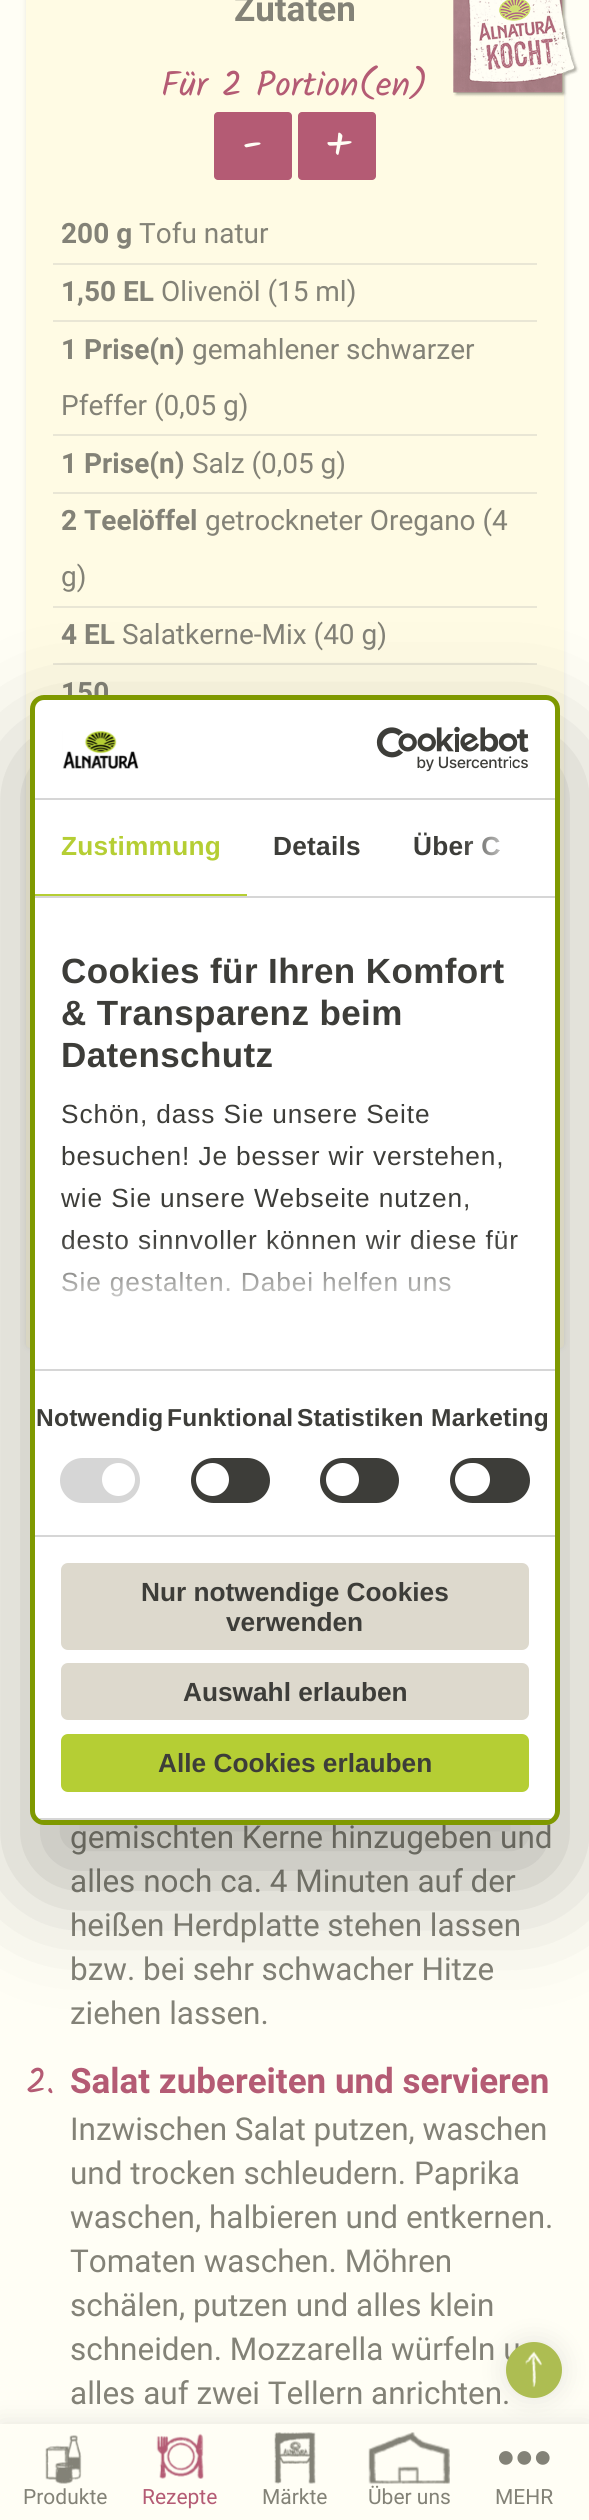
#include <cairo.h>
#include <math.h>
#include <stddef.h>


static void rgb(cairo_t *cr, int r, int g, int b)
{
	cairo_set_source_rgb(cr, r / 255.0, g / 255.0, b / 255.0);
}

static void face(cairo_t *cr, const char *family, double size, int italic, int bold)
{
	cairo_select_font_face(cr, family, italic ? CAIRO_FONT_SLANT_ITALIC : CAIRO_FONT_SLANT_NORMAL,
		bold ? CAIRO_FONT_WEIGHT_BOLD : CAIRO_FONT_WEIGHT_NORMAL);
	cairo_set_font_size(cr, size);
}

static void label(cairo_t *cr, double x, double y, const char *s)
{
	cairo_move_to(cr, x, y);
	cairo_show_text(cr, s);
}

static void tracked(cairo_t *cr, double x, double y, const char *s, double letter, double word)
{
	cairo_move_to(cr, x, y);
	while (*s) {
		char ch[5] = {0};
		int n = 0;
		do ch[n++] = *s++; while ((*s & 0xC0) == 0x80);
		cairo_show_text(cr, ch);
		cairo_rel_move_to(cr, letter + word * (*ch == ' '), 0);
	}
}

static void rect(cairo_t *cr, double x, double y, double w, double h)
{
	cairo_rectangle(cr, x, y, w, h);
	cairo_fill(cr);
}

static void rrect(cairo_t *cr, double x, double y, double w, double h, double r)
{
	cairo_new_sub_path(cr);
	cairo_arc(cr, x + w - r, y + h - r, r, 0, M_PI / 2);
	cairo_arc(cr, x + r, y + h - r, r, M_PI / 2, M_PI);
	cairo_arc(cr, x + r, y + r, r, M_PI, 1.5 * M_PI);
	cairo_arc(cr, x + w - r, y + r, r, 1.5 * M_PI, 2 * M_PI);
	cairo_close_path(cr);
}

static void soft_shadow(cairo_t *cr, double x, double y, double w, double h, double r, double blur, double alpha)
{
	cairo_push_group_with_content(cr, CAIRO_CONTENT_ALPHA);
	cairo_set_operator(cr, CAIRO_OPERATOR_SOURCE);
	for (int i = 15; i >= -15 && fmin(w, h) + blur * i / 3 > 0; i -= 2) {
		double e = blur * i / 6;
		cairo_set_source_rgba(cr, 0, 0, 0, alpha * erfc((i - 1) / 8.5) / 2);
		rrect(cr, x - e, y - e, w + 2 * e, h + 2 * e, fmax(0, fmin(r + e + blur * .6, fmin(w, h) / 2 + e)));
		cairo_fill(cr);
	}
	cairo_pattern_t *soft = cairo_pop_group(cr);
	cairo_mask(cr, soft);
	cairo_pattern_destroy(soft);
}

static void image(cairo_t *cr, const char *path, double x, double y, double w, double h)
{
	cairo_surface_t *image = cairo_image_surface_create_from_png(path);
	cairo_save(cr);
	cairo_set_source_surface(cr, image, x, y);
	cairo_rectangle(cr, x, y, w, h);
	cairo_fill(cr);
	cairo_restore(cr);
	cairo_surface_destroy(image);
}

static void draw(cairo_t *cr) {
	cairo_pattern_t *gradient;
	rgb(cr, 255, 254, 245);
	cairo_paint(cr);
	rgb(cr, 92, 91, 82);
	soft_shadow(cr, 28, -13, 534, 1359, 2, 3.5, 0.25);
	rgb(cr, 255, 251, 228);
	rrect(cr, 26, -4, 538, 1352, 4);
	cairo_fill(cr);
	face(cr, "Roboto", 35, 0, 1);
	rgb(cr, 131, 130, 119);
	label(cr, 234, 21, "Zutaten");
	face(cr, "Kalam", 35, 0, 0);
	rgb(cr, 180, 91, 116);
	label(cr, 161, 96, "Für 2 Portion(en)");
	rrect(cr, 214, 112, 78, 68, 4);
	cairo_fill(cr);
	face(cr, "Kalam", 44, 0, 0);
	rgb(cr, 255, 254, 245);
	label(cr, 242, 158, "-");
	rgb(cr, 180, 91, 116);
	rrect(cr, 298, 112, 78, 68, 4);
	cairo_fill(cr);
	rgb(cr, 255, 254, 245);
	label(cr, 325, 158, "+");
	rgb(cr, 233, 230, 213);
	rect(cr, 53, 263, 484, 2);
	face(cr, "Roboto", 28, 0, 1);
	rgb(cr, 131, 130, 119);
	label(cr, 61, 243, "200 g");
	face(cr, "Roboto", 28, 0, 0);
	label(cr, 139, 243, "Tofu natur");
	rgb(cr, 233, 230, 213);
	rect(cr, 53, 320, 484, 2);
	face(cr, "Roboto", 28, 0, 1);
	rgb(cr, 131, 130, 119);
	label(cr, 61, 301, "1,50 EL");
	face(cr, "Roboto", 28, 0, 0);
	label(cr, 161, 301, "Olivenöl (15 ml)");
	rgb(cr, 233, 230, 213);
	rect(cr, 53, 434, 484, 2);
	face(cr, "Roboto", 28, 0, 1);
	rgb(cr, 131, 130, 119);
	label(cr, 61, 359, "1 Prise(n)");
	face(cr, "Roboto", 28, 0, 0);
	label(cr, 192, 359, "gemahlener schwarzer");
	label(cr, 61, 415, "Pfeffer (0,05 g)");
	rgb(cr, 233, 230, 213);
	rect(cr, 53, 492, 484, 2);
	face(cr, "Roboto", 28, 0, 1);
	rgb(cr, 131, 130, 119);
	label(cr, 61, 473, "1 Prise(n)");
	face(cr, "Roboto", 28, 0, 0);
	label(cr, 192, 473, "Salz (0,05 g)");
	rgb(cr, 233, 230, 213);
	rect(cr, 53, 606, 484, 2);
	face(cr, "Roboto", 28, 0, 1);
	rgb(cr, 131, 130, 119);
	label(cr, 61, 530, "2 Teelöffel");
	face(cr, "Roboto", 28, 0, 0);
	label(cr, 205, 530, "getrockneter Oregano (4");
	label(cr, 61, 586, "g)");
	rgb(cr, 233, 230, 213);
	rect(cr, 53, 663, 484, 2);
	face(cr, "Roboto", 28, 0, 1);
	rgb(cr, 131, 130, 119);
	label(cr, 61, 644, "4 EL");
	face(cr, "Roboto", 28, 0, 0);
	label(cr, 122, 644, "Salatkerne-Mix (40 g)");
	face(cr, "Roboto", 28, 0, 1);
	label(cr, 61, 702, "150");
	image(cr, "image0.png", 453, 0, 126, 97);
	face(cr, "Roboto", 31.5, 0, 0);
	label(cr, 70, 1848, "gemischten Kerne hinzugeben und");
	label(cr, 70, 1892, "alles noch ca. 4 Minuten auf der");
	label(cr, 70, 1936, "heißen Herdplatte stehen lassen");
	label(cr, 70, 1980, "bzw. bei sehr schwacher Hitze");
	label(cr, 70, 2024, "ziehen lassen.");
	face(cr, "Kalam", 35, 0, 0);
	rgb(cr, 180, 91, 116);
	label(cr, 26, 2093, "2.");
	face(cr, "Roboto", 35, 0, 1);
	label(cr, 70, 2093, "Salat zubereiten und servieren");
	face(cr, "Roboto", 31.5, 0, 0);
	rgb(cr, 131, 130, 119);
	label(cr, 70, 2140, "Inzwischen Salat putzen, waschen");
	label(cr, 70, 2184, "und trocken schleudern. Paprika");
	label(cr, 70, 2228, "waschen, halbieren und entkernen.");
	label(cr, 70, 2272, "Tomaten waschen. Möhren");
	label(cr, 70, 2316, "schälen, putzen und alles klein");
	label(cr, 70, 2360, "schneiden. Mozzarella würfeln u");
	label(cr, 70, 2404, "alles auf zwei Tellern anrichten.");
	rgb(cr, 0, 0, 0);
	soft_shadow(cr, 30, 751, 530, 1130, 14, 59.5, 0.3);
	rgb(cr, 255, 255, 255);
	rrect(cr, 32.5, 697.5, 525, 1125, 11.5);
	cairo_fill_preserve(cr);
	rgb(cr, 127, 153, 0);
	cairo_set_line_width(cr, 5);
	cairo_stroke(cr);
	rgb(cr, 214, 214, 214);
	rect(cr, 35, 798, 520, 2);
	image(cr, "image1.png", 62, 731, 77, 38);
	image(cr, "image2.png", 376, 726, 153, 46);
	rect(cr, 35, 896, 520, 2);
	rgb(cr, 181, 206, 52);
	rect(cr, 35, 894, 212, 2);
	face(cr, "Liberation Sans", 26.25, 0, 1);
	tracked(cr, 61, 855, "Zustimmung", 0.25, 0);
	rgb(cr, 61, 61, 57);
	tracked(cr, 273, 855, "Details", 0.25, 0);
	tracked(cr, 413, 855, "Über C", 0.25, 0);
	gradient = cairo_pattern_create_linear(555, 848, 463, 848);
	cairo_pattern_add_color_stop_rgba(gradient, 0, 1, 1, 1, 1);
	cairo_pattern_add_color_stop_rgba(gradient, 0.5, 1, 1, 1, 0.8);
	cairo_pattern_add_color_stop_rgba(gradient, 1, 1, 1, 1, 0);
	cairo_set_source(cr, gradient);
	cairo_pattern_destroy(gradient);
	rect(cr, 464, 836, 35, 20);
	rgb(cr, 214, 214, 214);
	rect(cr, 35, 1369, 520, 2);
	face(cr, "Liberation Sans", 35, 0, 1);
	rgb(cr, 61, 61, 57);
	tracked(cr, 61, 983, "Cookies für Ihren Komfort", 0.4, 0);
	tracked(cr, 61, 1025, "& Transparenz beim", 0.4, 0);
	tracked(cr, 61, 1067, "Datenschutz", 0.4, 0);
	face(cr, "Liberation Sans", 26.25, 0, 0);
	tracked(cr, 61, 1123, "Schön, dass Sie unsere Seite", 0.9, 0);
	tracked(cr, 61, 1165, "besuchen! Je besser wir verstehen,", 0.9, 0);
	tracked(cr, 61, 1207, "wie Sie unsere Webseite nutzen,", 0.9, 0);
	tracked(cr, 61, 1249, "desto sinnvoller können wir diese für", 0.9, 0);
	tracked(cr, 61, 1291, "Sie gestalten. Dabei helfen uns", 0.9, 0);
	gradient = cairo_pattern_create_linear(284, 1369, 284, 1238);
	cairo_pattern_add_color_stop_rgba(gradient, 0, 1, 1, 1, 1);
	cairo_pattern_add_color_stop_rgba(gradient, 0.5, 1, 1, 1, 0.8);
	cairo_pattern_add_color_stop_rgba(gradient, 1, 1, 1, 1, 0);
	cairo_set_source(cr, gradient);
	cairo_pattern_destroy(gradient);
	rect(cr, 62, 1240, 451, 57);
	rgb(cr, 214, 214, 214);
	rect(cr, 35, 1535, 520, 2);
	face(cr, "Liberation Sans", 24.5, 0, 1);
	rgb(cr, 61, 61, 57);
	tracked(cr, 36, 1426, "Notwendig", 0.25, 0);
	rgb(cr, 214, 214, 214);
	rrect(cr, 60, 1458, 80, 45, 22.5);
	cairo_fill(cr);
	rgb(cr, 255, 255, 255);
	cairo_arc(cr, 118.5, 1479.5, 16.5, 0, 2 * M_PI);
	cairo_fill(cr);
	rgb(cr, 61, 61, 57);
	tracked(cr, 167, 1426, "Funktional", 0.25, 0);
	rrect(cr, 191, 1458, 79, 45, 22.5);
	cairo_fill(cr);
	rgb(cr, 255, 255, 255);
	cairo_arc(cr, 212.5, 1479.5, 16.5, 0, 2 * M_PI);
	cairo_fill(cr);
	rgb(cr, 61, 61, 57);
	tracked(cr, 297, 1426, "Statistiken", 0.25, 0);
	rrect(cr, 320, 1458, 79, 45, 22.5);
	cairo_fill(cr);
	rgb(cr, 255, 255, 255);
	cairo_arc(cr, 342.5, 1479.5, 16.5, 0, 2 * M_PI);
	cairo_fill(cr);
	rgb(cr, 61, 61, 57);
	tracked(cr, 431, 1426, "Marketing", 0.25, 0);
	rrect(cr, 450, 1458, 80, 45, 22.5);
	cairo_fill(cr);
	rgb(cr, 255, 255, 255);
	rrect(cr, 455, 1463, 35, 33, 16.5);
	cairo_fill(cr);
	cairo_save(cr);
	rrect(cr, 35, 700, 520, 1120, 9);
	cairo_clip(cr);
	rgb(cr, 214, 214, 214);
	rect(cr, 35, 1818, 520, 2);
	cairo_restore(cr);
	rgb(cr, 221, 217, 205);
	rrect(cr, 61, 1563, 468, 87, 7);
	cairo_fill(cr);
	face(cr, "Liberation Sans", 26.25, 0, 1);
	rgb(cr, 61, 61, 57);
	label(cr, 141, 1601, "Nur notwendige Cookies");
	label(cr, 226, 1631, "verwenden");
	rgb(cr, 221, 217, 205);
	rrect(cr, 61, 1663, 468, 57, 7);
	cairo_fill(cr);
	rgb(cr, 61, 61, 57);
	label(cr, 183, 1701, "Auswahl erlauben");
	rgb(cr, 181, 206, 52);
	rrect(cr, 61, 1734, 468, 58, 7);
	cairo_fill(cr);
	rgb(cr, 61, 61, 57);
	label(cr, 158, 1772, "Alle Cookies erlauben");
	rgb(cr, 92, 91, 82);
	soft_shadow(cr, 506, 2342, 56, 56, 28, 13, 0.15);
	rgb(cr, 173, 189, 82);
	cairo_arc(cr, 534, 2370, 28, 0, 2 * M_PI);
	cairo_fill(cr);
	image(cr, "image3.png", 525, 2351, 17, 37);
	rgb(cr, 92, 91, 82);
	soft_shadow(cr, 0, 2424, 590, 96, 0, 13, 0.15);
	rgb(cr, 255, 254, 245);
	rect(cr, 0, 2424, 589, 96);
	image(cr, "image4.png", 45, 2435, 37, 49);
	face(cr, "Roboto", 21, 0, 0);
	rgb(cr, 131, 130, 119);
	label(cr, 23, 2504, "Produkte");
	image(cr, "image5.png", 156, 2433, 48, 46);
	rgb(cr, 180, 91, 116);
	label(cr, 142, 2504, "Rezepte");
	image(cr, "image6.png", 274, 2432, 42, 52);
	rgb(cr, 131, 130, 119);
	label(cr, 262, 2504, "Märkte");
	image(cr, "image7.png", 368, 2432, 82, 52);
	label(cr, 368, 2504, "Über uns");
	image(cr, "image8.png", 499, 2451, 51, 14);
	label(cr, 495, 2504, "MEHR");
}

int main(void) {
	cairo_surface_t *surface = cairo_image_surface_create(CAIRO_FORMAT_RGB24, 589, 2520);
	cairo_t *cr = cairo_create(surface);
	cairo_font_options_t *options = cairo_font_options_create();
	cairo_font_options_set_hint_metrics(options, CAIRO_HINT_METRICS_OFF);
	cairo_font_options_set_hint_style(options, CAIRO_HINT_STYLE_NONE);
	cairo_set_font_options(cr, options);
	cairo_set_miter_limit(cr, 4);
	draw(cr);
	cairo_surface_write_to_png(surface, "render.png");
	cairo_font_options_destroy(options);
	cairo_destroy(cr);
	cairo_surface_destroy(surface);
	return 0;
}
